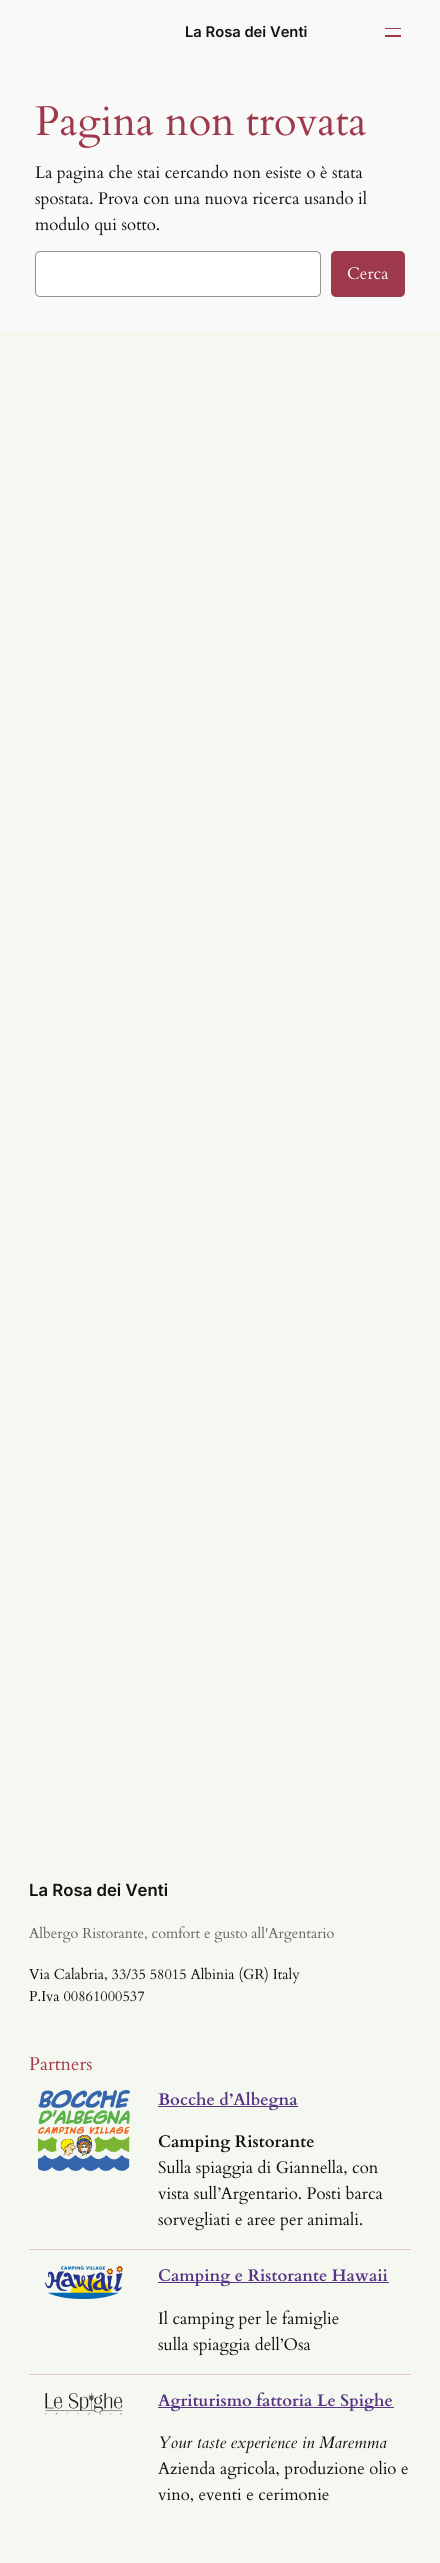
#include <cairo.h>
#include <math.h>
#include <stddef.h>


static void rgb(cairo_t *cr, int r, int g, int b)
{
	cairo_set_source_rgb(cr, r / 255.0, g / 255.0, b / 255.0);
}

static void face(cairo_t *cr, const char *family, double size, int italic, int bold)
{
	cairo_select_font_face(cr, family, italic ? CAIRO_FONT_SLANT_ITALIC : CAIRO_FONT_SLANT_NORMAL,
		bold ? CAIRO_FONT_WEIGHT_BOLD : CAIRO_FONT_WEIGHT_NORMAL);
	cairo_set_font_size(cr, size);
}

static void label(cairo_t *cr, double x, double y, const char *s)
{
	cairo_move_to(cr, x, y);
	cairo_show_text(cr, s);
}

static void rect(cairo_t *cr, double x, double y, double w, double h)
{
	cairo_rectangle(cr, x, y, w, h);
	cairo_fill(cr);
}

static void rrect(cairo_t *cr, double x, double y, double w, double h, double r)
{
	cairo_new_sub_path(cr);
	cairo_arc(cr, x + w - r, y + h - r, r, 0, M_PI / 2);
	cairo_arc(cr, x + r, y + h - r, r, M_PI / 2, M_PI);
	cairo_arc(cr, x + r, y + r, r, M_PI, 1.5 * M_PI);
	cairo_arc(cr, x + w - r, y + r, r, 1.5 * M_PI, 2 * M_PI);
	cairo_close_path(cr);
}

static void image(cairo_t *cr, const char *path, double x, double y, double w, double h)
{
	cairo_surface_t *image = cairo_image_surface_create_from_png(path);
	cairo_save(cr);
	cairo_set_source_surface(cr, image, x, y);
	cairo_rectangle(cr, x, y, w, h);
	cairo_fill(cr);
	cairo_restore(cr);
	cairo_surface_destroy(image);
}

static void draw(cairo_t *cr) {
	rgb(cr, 249, 249, 249);
	cairo_paint(cr);
	face(cr, "Inter SemiBold", 14.75, 0, 0);
	rgb(cr, 17, 17, 17);
	label(cr, 185, 37, "La Rosa dei Venti");
	rgb(cr, 158, 57, 76);
	rect(cr, 385, 28, 16, 1);
	rect(cr, 385, 35, 16, 2);
	face(cr, "Cardo", 41.5, 0, 0);
	label(cr, 35, 135, "Pagina non trovata");
	face(cr, "Cardo", 16.75, 0, 0);
	rgb(cr, 17, 17, 17);
	label(cr, 35, 178, "La pagina che stai cercando non esiste o è stata");
	label(cr, 35, 204, "spostata. Prova con una nuova ricerca usando il");
	label(cr, 35, 230, "modulo qui sotto.");
	rgb(cr, 255, 255, 255);
	rrect(cr, 35.5, 251.5, 285, 45, 4.5);
	cairo_fill_preserve(cr);
	rgb(cr, 148, 148, 148);
	cairo_set_line_width(cr, 1);
	cairo_stroke(cr);
	rgb(cr, 158, 57, 76);
	rrect(cr, 331, 251, 74, 46, 5);
	cairo_fill(cr);
	rgb(cr, 249, 249, 249);
	label(cr, 347, 279, "Cerca");
	rgb(cr, 245, 248, 240);
	rect(cr, 0, 332, 440, 2231);
	face(cr, "Inter SemiBold", 16.75, 0, 0);
	rgb(cr, 17, 17, 17);
	label(cr, 29, 1896, "La Rosa dei Venti");
	face(cr, "Cardo", 14.4, 0, 0);
	rgb(cr, 99, 99, 99);
	label(cr, 29, 1938, "Albergo Ristorante, comfort e gusto all'Argentario");
	rgb(cr, 17, 17, 17);
	label(cr, 29, 1979, "Via Calabria, 33/35 58015 Albinia (GR) Italy");
	label(cr, 29, 2001, "P.Iva 00861000537");
	face(cr, "Cardo", 18.5, 0, 0);
	rgb(cr, 158, 57, 76);
	label(cr, 29, 2070, "Partners");
	image(cr, "image0.png", 38, 2090, 92, 81);
	rgb(cr, 88, 52, 133);
	rect(cr, 158, 2106, 140, 1);
	face(cr, "Cardo", 16.75, 0, 1);
	label(cr, 158, 2105, "Bocche d’Albegna");
	rgb(cr, 17, 17, 17);
	label(cr, 158, 2147, "Camping Ristorante");
	face(cr, "Cardo", 16.75, 0, 0);
	label(cr, 158, 2173, "Sulla spiaggia di Giannella, con");
	label(cr, 158, 2199, "vista sull’Argentario. Posti barca");
	label(cr, 158, 2225, "sorvegliati e aree per animali.");
	rgb(cr, 223, 200, 199);
	rect(cr, 29, 2249, 382, 1);
	image(cr, "image1.png", 45, 2266, 78, 33);
	rgb(cr, 88, 52, 133);
	rect(cr, 158, 2282, 231, 1);
	face(cr, "Cardo", 16.75, 0, 1);
	label(cr, 158, 2281, "Camping e Ristorante Hawaii");
	face(cr, "Cardo", 16.75, 0, 0);
	rgb(cr, 17, 17, 17);
	label(cr, 158, 2324, "Il camping per le famiglie");
	label(cr, 158, 2350, "sulla spiaggia dell’Osa");
	rgb(cr, 223, 200, 199);
	rect(cr, 29, 2374, 382, 1);
	image(cr, "image2.png", 45, 2393, 78, 22);
	rgb(cr, 88, 52, 133);
	rect(cr, 158, 2407, 236, 1);
	face(cr, "Cardo", 16.75, 0, 1);
	label(cr, 158, 2406, "Agriturismo fattoria Le Spighe");
	face(cr, "Cardo", 16.75, 1, 0);
	rgb(cr, 17, 17, 17);
	label(cr, 158, 2448, "Your taste experience in Maremma");
	face(cr, "Cardo", 16.75, 0, 0);
	label(cr, 158, 2474, "Azienda agricola, produzione olio e");
	label(cr, 158, 2500, "vino, eventi e cerimonie");
}

int main(void) {
	cairo_surface_t *surface = cairo_image_surface_create(CAIRO_FORMAT_RGB24, 440, 2563);
	cairo_t *cr = cairo_create(surface);
	cairo_font_options_t *options = cairo_font_options_create();
	cairo_font_options_set_hint_metrics(options, CAIRO_HINT_METRICS_OFF);
	cairo_font_options_set_hint_style(options, CAIRO_HINT_STYLE_NONE);
	cairo_set_font_options(cr, options);
	cairo_set_miter_limit(cr, 4);
	draw(cr);
	cairo_surface_write_to_png(surface, "render.png");
	cairo_font_options_destroy(options);
	cairo_destroy(cr);
	cairo_surface_destroy(surface);
	return 0;
}
